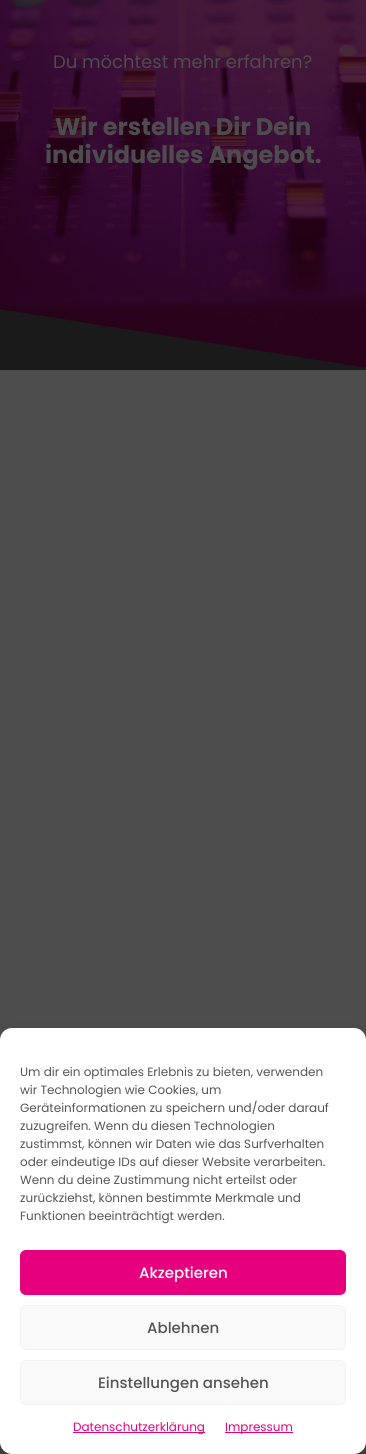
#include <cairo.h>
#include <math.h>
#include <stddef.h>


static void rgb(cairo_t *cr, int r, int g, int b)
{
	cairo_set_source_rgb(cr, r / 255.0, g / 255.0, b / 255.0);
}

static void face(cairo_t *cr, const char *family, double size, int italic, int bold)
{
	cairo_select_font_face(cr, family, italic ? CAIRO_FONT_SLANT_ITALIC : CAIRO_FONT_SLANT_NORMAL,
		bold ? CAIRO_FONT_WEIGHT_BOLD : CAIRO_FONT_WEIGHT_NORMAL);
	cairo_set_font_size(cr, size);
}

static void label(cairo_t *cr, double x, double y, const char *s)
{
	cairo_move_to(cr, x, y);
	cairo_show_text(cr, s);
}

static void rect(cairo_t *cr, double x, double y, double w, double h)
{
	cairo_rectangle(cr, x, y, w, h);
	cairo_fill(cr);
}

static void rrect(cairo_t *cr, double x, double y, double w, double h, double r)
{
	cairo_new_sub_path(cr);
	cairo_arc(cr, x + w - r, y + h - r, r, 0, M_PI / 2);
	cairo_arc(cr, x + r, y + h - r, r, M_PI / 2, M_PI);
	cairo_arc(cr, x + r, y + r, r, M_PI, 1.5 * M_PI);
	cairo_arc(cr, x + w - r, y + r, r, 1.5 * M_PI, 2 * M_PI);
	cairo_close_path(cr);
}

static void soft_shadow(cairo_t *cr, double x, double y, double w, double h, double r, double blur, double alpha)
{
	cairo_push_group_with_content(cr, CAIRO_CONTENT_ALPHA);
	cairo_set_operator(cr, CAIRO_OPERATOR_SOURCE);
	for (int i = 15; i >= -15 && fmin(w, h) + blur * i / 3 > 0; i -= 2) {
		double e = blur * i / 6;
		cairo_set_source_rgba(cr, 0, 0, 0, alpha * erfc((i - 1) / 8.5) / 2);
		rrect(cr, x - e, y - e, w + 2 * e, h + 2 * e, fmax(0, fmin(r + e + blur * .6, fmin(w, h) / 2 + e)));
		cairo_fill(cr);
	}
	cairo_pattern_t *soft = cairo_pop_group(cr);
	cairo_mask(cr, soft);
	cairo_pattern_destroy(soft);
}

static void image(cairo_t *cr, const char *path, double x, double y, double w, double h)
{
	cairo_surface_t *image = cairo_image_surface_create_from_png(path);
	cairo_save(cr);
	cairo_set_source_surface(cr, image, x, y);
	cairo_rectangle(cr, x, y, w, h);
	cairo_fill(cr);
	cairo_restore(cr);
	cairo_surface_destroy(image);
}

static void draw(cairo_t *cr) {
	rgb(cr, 77, 77, 77);
	cairo_paint(cr);
	image(cr, "image0.png", 0, 0, 366, 368);
	face(cr, "Poppins", 18, 0, 0);
	rgb(cr, 77, 77, 77);
	label(cr, 53, 68, "Du möchtest mehr erfahren?");
	face(cr, "Poppins", 24, 0, 1);
	label(cr, 55, 135, "Wir erstellen Dir Dein");
	label(cr, 45, 163, "individuelles Angebot.");
	cairo_save(cr);
	cairo_rectangle(cr, 0, 308, 366, 62);
	cairo_clip(cr);
	rgb(cr, 26, 26, 26);
	cairo_new_path(cr);
	cairo_move_to(cr, 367, 368);
	cairo_line_to(cr, 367, 372);
	cairo_line_to(cr, -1, 372);
	cairo_line_to(cr, -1, 309);
	cairo_close_path(cr);
	cairo_fill(cr);
	cairo_restore(cr);
	rgb(cr, 0, 0, 0);
	soft_shadow(cr, 0, 1034, 366, 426, 12, 3, 0.23);
	soft_shadow(cr, 0, 1038, 366, 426, 12, 10, 0.19);
	rgb(cr, 255, 255, 255);
	rrect(cr, 0, 1028, 366, 426, 12);
	cairo_fill(cr);
	face(cr, "Poppins", 12, 0, 0);
	rgb(cr, 85, 85, 85);
	label(cr, 20, 1076, "Um dir ein optimales Erlebnis zu bieten, verwenden");
	label(cr, 20, 1094, "wir Technologien wie Cookies, um");
	label(cr, 20, 1112, "Geräteinformationen zu speichern und/oder darauf");
	label(cr, 20, 1130, "zuzugreifen. Wenn du diesen Technologien");
	label(cr, 20, 1148, "zustimmst, können wir Daten wie das Surfverhalten");
	label(cr, 20, 1166, "oder eindeutige IDs auf dieser Website verarbeiten.");
	label(cr, 20, 1184, "Wenn du deine Zustimmung nicht erteilst oder");
	label(cr, 20, 1202, "zurückziehst, können bestimmte Merkmale und");
	label(cr, 20, 1220, "Funktionen beeinträchtigt werden.");
	rgb(cr, 230, 0, 126);
	rrect(cr, 20.5, 1250.5, 325, 44, 5.5);
	cairo_fill_preserve(cr);
	cairo_set_line_width(cr, 1);
	cairo_stroke(cr);
	face(cr, "Poppins Medium", 15, 0, 0);
	rgb(cr, 255, 255, 255);
	label(cr, 139, 1278, "Akzeptieren");
	rgb(cr, 249, 249, 249);
	rrect(cr, 20.5, 1305.5, 325, 44, 5.5);
	cairo_fill_preserve(cr);
	rgb(cr, 242, 242, 242);
	cairo_stroke(cr);
	rgb(cr, 85, 85, 85);
	label(cr, 147, 1333, "Ablehnen");
	rgb(cr, 249, 249, 249);
	rrect(cr, 20.5, 1360.5, 325, 44, 5.5);
	cairo_fill_preserve(cr);
	rgb(cr, 242, 242, 242);
	cairo_stroke(cr);
	rgb(cr, 85, 85, 85);
	label(cr, 98, 1388, "Einstellungen ansehen");
	rgb(cr, 230, 0, 126);
	rect(cr, 73, 1432, 132, 1);
	face(cr, "Poppins", 12, 0, 0);
	label(cr, 73, 1431, "Datenschutzerklärung");
	rect(cr, 225, 1432, 68, 1);
	label(cr, 225, 1431, "Impressum");
}

int main(void) {
	cairo_surface_t *surface = cairo_image_surface_create(CAIRO_FORMAT_RGB24, 366, 1454);
	cairo_t *cr = cairo_create(surface);
	cairo_font_options_t *options = cairo_font_options_create();
	cairo_font_options_set_hint_metrics(options, CAIRO_HINT_METRICS_OFF);
	cairo_font_options_set_hint_style(options, CAIRO_HINT_STYLE_NONE);
	cairo_set_font_options(cr, options);
	cairo_set_miter_limit(cr, 4);
	draw(cr);
	cairo_surface_write_to_png(surface, "render.png");
	cairo_font_options_destroy(options);
	cairo_destroy(cr);
	cairo_surface_destroy(surface);
	return 0;
}
